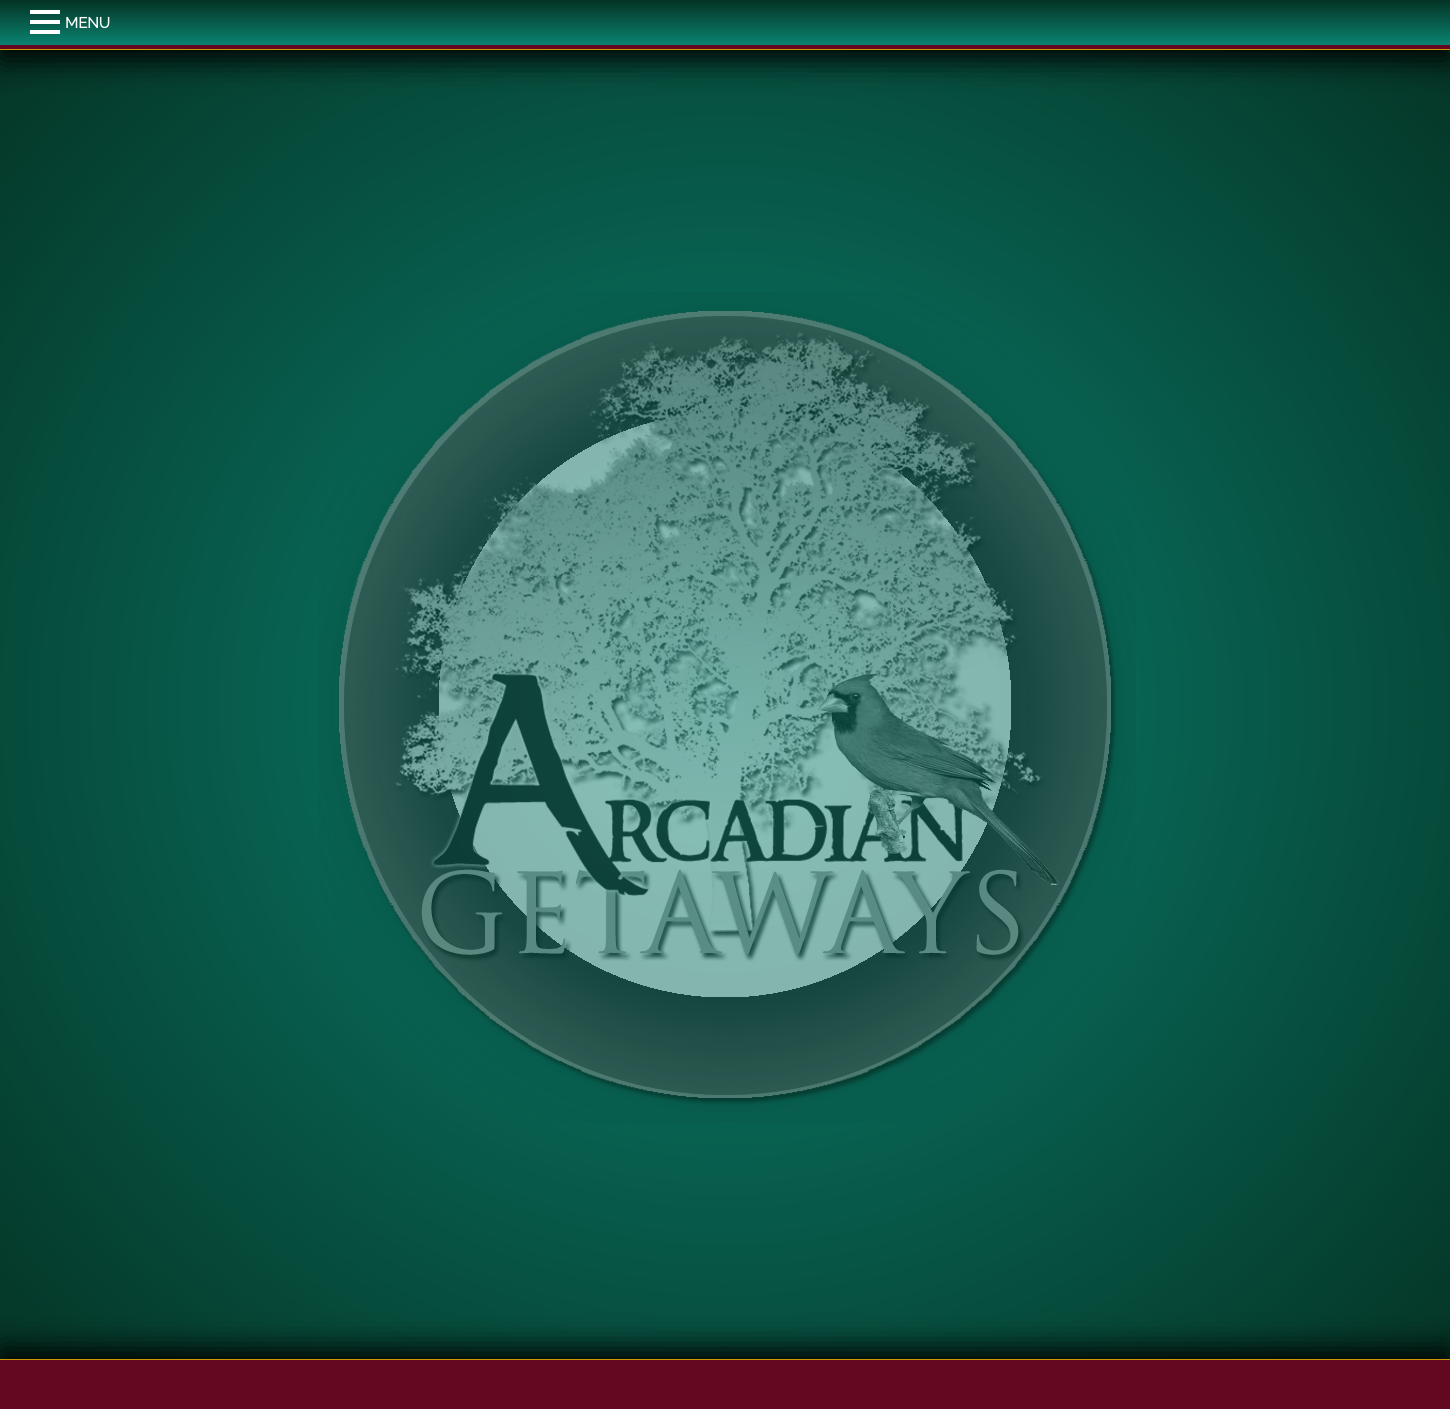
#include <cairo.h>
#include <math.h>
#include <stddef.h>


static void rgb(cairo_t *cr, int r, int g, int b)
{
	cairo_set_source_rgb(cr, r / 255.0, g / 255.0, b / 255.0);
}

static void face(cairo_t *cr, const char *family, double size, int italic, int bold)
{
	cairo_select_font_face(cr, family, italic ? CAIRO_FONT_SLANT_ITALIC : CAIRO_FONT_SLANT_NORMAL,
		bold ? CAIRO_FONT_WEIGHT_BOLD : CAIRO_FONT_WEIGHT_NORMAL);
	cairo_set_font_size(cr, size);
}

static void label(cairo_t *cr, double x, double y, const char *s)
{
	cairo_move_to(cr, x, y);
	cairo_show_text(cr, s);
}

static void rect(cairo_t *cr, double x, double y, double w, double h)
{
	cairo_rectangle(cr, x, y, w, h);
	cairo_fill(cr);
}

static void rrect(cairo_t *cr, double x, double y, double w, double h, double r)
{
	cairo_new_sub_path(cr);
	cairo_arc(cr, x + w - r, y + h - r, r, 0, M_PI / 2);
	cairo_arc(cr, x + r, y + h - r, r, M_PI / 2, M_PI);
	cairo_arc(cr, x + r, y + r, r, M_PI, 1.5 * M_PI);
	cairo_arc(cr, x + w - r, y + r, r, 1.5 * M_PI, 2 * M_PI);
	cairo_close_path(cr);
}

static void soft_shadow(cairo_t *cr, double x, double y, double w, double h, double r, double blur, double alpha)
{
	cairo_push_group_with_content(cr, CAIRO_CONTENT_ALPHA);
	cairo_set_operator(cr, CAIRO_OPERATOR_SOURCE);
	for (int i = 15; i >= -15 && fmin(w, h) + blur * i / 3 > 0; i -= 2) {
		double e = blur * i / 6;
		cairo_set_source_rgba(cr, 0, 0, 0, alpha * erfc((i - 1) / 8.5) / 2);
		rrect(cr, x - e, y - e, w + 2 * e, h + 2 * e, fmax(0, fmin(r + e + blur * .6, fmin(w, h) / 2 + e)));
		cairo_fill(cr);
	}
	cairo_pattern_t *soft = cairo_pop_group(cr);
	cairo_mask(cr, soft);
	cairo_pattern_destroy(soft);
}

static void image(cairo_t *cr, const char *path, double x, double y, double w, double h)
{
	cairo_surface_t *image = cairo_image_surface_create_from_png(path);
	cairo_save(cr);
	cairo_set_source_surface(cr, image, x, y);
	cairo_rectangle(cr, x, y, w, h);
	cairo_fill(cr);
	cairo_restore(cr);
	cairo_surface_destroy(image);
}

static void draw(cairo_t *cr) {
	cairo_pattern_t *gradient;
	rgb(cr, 255, 255, 255);
	cairo_paint(cr);
	gradient = cairo_pattern_create_radial(0, 0, 0, 0, 0, 1);
	cairo_pattern_set_matrix(gradient, &(cairo_matrix_t){1.0 / 1025, 0, 0, 1.0 / 996, -1.0 * 725 / 1025, -1.0 * 705 / 996});
	cairo_pattern_add_color_stop_rgba(gradient, 0, 0.043, 0.514, 0.443, 1);
	cairo_pattern_add_color_stop_rgba(gradient, 1, 0.016, 0.2, 0.141, 1);
	cairo_set_source(cr, gradient);
	cairo_pattern_destroy(gradient);
	rect(cr, 0, 50, 1450, 1309);
	image(cr, "image0.png", 318, 292, 818, 831);
	rgb(cr, 0, 0, 0);
	soft_shadow(cr, 0, 10, 1450, 50, 0, 15, 1);
	rgb(cr, 100, 8, 34);
	rect(cr, 0, 45, 1450, 4);
	rgb(cr, 204, 153, 0);
	rect(cr, 0, 49, 1450, 1);
	gradient = cairo_pattern_create_linear(725, 0, 725, 45);
	cairo_pattern_add_color_stop_rgba(gradient, 0, 0.016, 0.2, 0.141, 1);
	cairo_pattern_add_color_stop_rgba(gradient, 1, 0.043, 0.514, 0.443, 1);
	cairo_set_source(cr, gradient);
	cairo_pattern_destroy(gradient);
	rect(cr, 0, 0, 1450, 45);
	rgb(cr, 255, 255, 255);
	rect(cr, 30, 10, 30, 4);
	rect(cr, 30, 20, 30, 4);
	face(cr, "Raleway", 15, 0, 1);
	label(cr, 65, 28, "MENU");
	rect(cr, 30, 30, 30, 4);
	rgb(cr, 0, 0, 0);
	soft_shadow(cr, 0, 1349, 1450, 50, 0, 15, 1);
	rgb(cr, 100, 8, 34);
	rect(cr, 0, 1360, 1450, 49);
	rgb(cr, 204, 153, 0);
	rect(cr, 0, 1359, 1450, 1);
}

int main(void) {
	cairo_surface_t *surface = cairo_image_surface_create(CAIRO_FORMAT_RGB24, 1450, 1409);
	cairo_t *cr = cairo_create(surface);
	cairo_font_options_t *options = cairo_font_options_create();
	cairo_font_options_set_hint_metrics(options, CAIRO_HINT_METRICS_OFF);
	cairo_font_options_set_hint_style(options, CAIRO_HINT_STYLE_NONE);
	cairo_set_font_options(cr, options);
	cairo_set_miter_limit(cr, 4);
	draw(cr);
	cairo_surface_write_to_png(surface, "render.png");
	cairo_font_options_destroy(options);
	cairo_destroy(cr);
	cairo_surface_destroy(surface);
	return 0;
}
